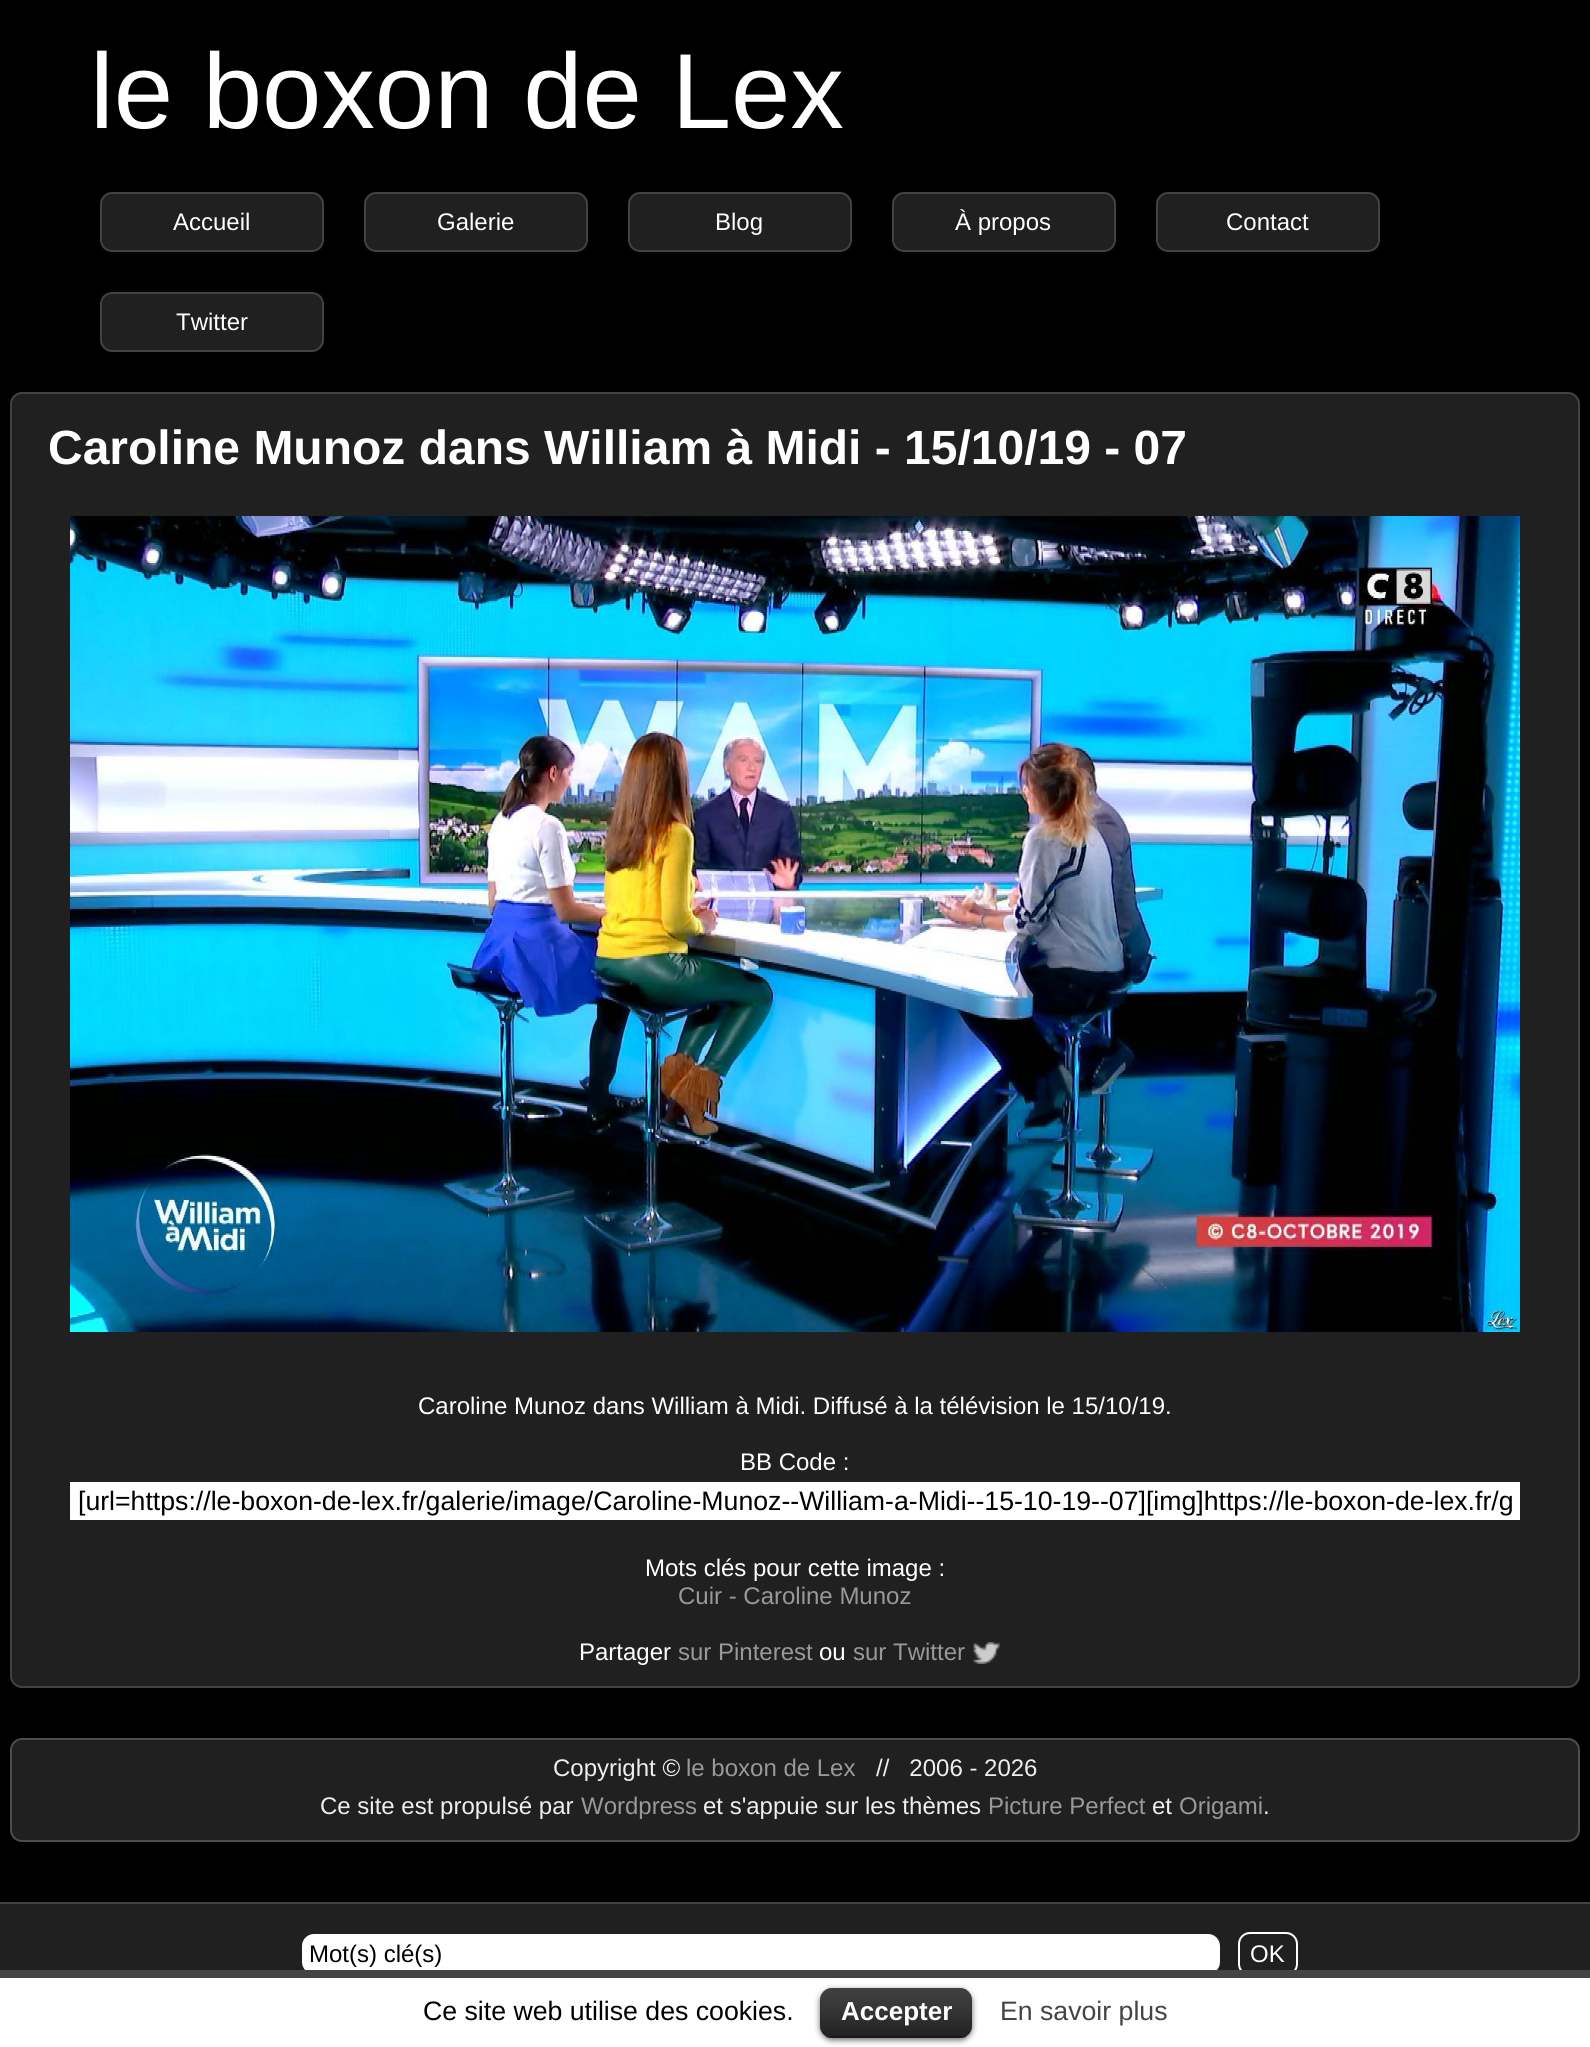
#include <cairo.h>
#include <math.h>
#include <stddef.h>


static void rgb(cairo_t *cr, int r, int g, int b)
{
	cairo_set_source_rgb(cr, r / 255.0, g / 255.0, b / 255.0);
}

static void face(cairo_t *cr, const char *family, double size, int italic, int bold)
{
	cairo_select_font_face(cr, family, italic ? CAIRO_FONT_SLANT_ITALIC : CAIRO_FONT_SLANT_NORMAL,
		bold ? CAIRO_FONT_WEIGHT_BOLD : CAIRO_FONT_WEIGHT_NORMAL);
	cairo_set_font_size(cr, size);
}

static void label(cairo_t *cr, double x, double y, const char *s)
{
	cairo_move_to(cr, x, y);
	cairo_show_text(cr, s);
}

static void rect(cairo_t *cr, double x, double y, double w, double h)
{
	cairo_rectangle(cr, x, y, w, h);
	cairo_fill(cr);
}

static void rrect(cairo_t *cr, double x, double y, double w, double h, double r)
{
	cairo_new_sub_path(cr);
	cairo_arc(cr, x + w - r, y + h - r, r, 0, M_PI / 2);
	cairo_arc(cr, x + r, y + h - r, r, M_PI / 2, M_PI);
	cairo_arc(cr, x + r, y + r, r, M_PI, 1.5 * M_PI);
	cairo_arc(cr, x + w - r, y + r, r, 1.5 * M_PI, 2 * M_PI);
	cairo_close_path(cr);
}

static void soft_shadow(cairo_t *cr, double x, double y, double w, double h, double r, double blur, double alpha)
{
	cairo_push_group_with_content(cr, CAIRO_CONTENT_ALPHA);
	cairo_set_operator(cr, CAIRO_OPERATOR_SOURCE);
	for (int i = 15; i >= -15 && fmin(w, h) + blur * i / 3 > 0; i -= 2) {
		double e = blur * i / 6;
		cairo_set_source_rgba(cr, 0, 0, 0, alpha * erfc((i - 1) / 8.5) / 2);
		rrect(cr, x - e, y - e, w + 2 * e, h + 2 * e, fmax(0, fmin(r + e + blur * .6, fmin(w, h) / 2 + e)));
		cairo_fill(cr);
	}
	cairo_pattern_t *soft = cairo_pop_group(cr);
	cairo_mask(cr, soft);
	cairo_pattern_destroy(soft);
}

static void image(cairo_t *cr, const char *path, double x, double y, double w, double h)
{
	cairo_surface_t *image = cairo_image_surface_create_from_png(path);
	cairo_save(cr);
	cairo_set_source_surface(cr, image, x, y);
	cairo_rectangle(cr, x, y, w, h);
	cairo_fill(cr);
	cairo_restore(cr);
	cairo_surface_destroy(image);
}

static void draw(cairo_t *cr) {
	rgb(cr, 0, 0, 0);
	cairo_paint(cr);
	face(cr, "Liberation Sans", 106.75, 0, 0);
	rgb(cr, 255, 255, 255);
	label(cr, 90, 128, "le boxon de Lex");
	rgb(cr, 32, 32, 32);
	rrect(cr, 101, 193, 222, 58, 11);
	cairo_fill_preserve(cr);
	rgb(cr, 66, 66, 66);
	cairo_stroke(cr);
	face(cr, "Liberation Sans", 24, 0, 0);
	rgb(cr, 255, 255, 255);
	label(cr, 173, 230, "Accueil");
	rgb(cr, 32, 32, 32);
	rrect(cr, 365, 193, 222, 58, 11);
	cairo_fill_preserve(cr);
	rgb(cr, 66, 66, 66);
	cairo_stroke(cr);
	rgb(cr, 255, 255, 255);
	label(cr, 437, 230, "Galerie");
	rgb(cr, 32, 32, 32);
	rrect(cr, 629, 193, 222, 58, 11);
	cairo_fill_preserve(cr);
	rgb(cr, 66, 66, 66);
	cairo_stroke(cr);
	rgb(cr, 255, 255, 255);
	label(cr, 715, 230, "Blog");
	rgb(cr, 32, 32, 32);
	rrect(cr, 893, 193, 222, 58, 11);
	cairo_fill_preserve(cr);
	rgb(cr, 66, 66, 66);
	cairo_stroke(cr);
	rgb(cr, 255, 255, 255);
	label(cr, 955, 230, "À propos");
	rgb(cr, 32, 32, 32);
	rrect(cr, 1157, 193, 222, 58, 11);
	cairo_fill_preserve(cr);
	rgb(cr, 66, 66, 66);
	cairo_stroke(cr);
	rgb(cr, 255, 255, 255);
	label(cr, 1226, 230, "Contact");
	rgb(cr, 32, 32, 32);
	rrect(cr, 101, 293, 222, 58, 11);
	cairo_fill_preserve(cr);
	rgb(cr, 66, 66, 66);
	cairo_stroke(cr);
	rgb(cr, 255, 255, 255);
	label(cr, 176, 330, "Twitter");
	rgb(cr, 32, 32, 32);
	rrect(cr, 11, 393, 1568, 1294, 11);
	cairo_fill_preserve(cr);
	rgb(cr, 66, 66, 66);
	cairo_stroke(cr);
	face(cr, "Liberation Sans", 48, 0, 1);
	rgb(cr, 255, 255, 255);
	label(cr, 48, 464, "Caroline Munoz dans William à Midi - 15/10/19 - 07");
	image(cr, "image0.png", 70, 516, 1450, 816);
	face(cr, "Liberation Sans", 24, 0, 0);
	label(cr, 418, 1414, "Caroline Munoz dans William à Midi. Diffusé à la télévision le 15/10/19.");
	label(cr, 740, 1470, "BB Code :");
	rect(cr, 70, 1482, 1450, 38);
	face(cr, "Liberation Sans", 26.67, 0, 0);
	rgb(cr, 0, 0, 0);
	label(cr, 78, 1510, "[url=https://le-boxon-de-lex.fr/galerie/image/Caroline-Munoz--William-a-Midi--15-10-19--07][img]https://le-boxon-de-lex.fr/g");
	face(cr, "Liberation Sans", 24, 0, 0);
	rgb(cr, 255, 255, 255);
	label(cr, 645, 1576, "Mots clés pour cette image :");
	rgb(cr, 153, 153, 153);
	label(cr, 678, 1604, "Cuir - Caroline Munoz");
	rgb(cr, 255, 255, 255);
	label(cr, 579, 1660, "Partager");
	rgb(cr, 153, 153, 153);
	label(cr, 678, 1660, "sur Pinterest");
	rgb(cr, 255, 255, 255);
	label(cr, 819, 1660, "ou");
	rgb(cr, 153, 153, 153);
	label(cr, 853, 1660, "sur Twitter");
	image(cr, "image1.png", 972, 1642, 28, 22);
	rgb(cr, 32, 32, 32);
	rrect(cr, 11, 1739, 1568, 102, 11);
	cairo_fill_preserve(cr);
	rgb(cr, 77, 77, 77);
	cairo_stroke(cr);
	rgb(cr, 238, 238, 238);
	label(cr, 553, 1776, "Copyright ©");
	rgb(cr, 153, 153, 153);
	label(cr, 686, 1776, "le boxon de Lex");
	rgb(cr, 238, 238, 238);
	label(cr, 876, 1776, "//   2006 - 2026");
	label(cr, 320, 1814, "Ce site est propulsé par");
	rgb(cr, 153, 153, 153);
	label(cr, 581, 1814, "Wordpress");
	rgb(cr, 238, 238, 238);
	label(cr, 703, 1814, "et s'appuie sur les thèmes");
	rgb(cr, 153, 153, 153);
	label(cr, 988, 1814, "Picture Perfect");
	rgb(cr, 238, 238, 238);
	label(cr, 1152, 1814, "et");
	rgb(cr, 153, 153, 153);
	label(cr, 1179, 1814, "Origami");
	rgb(cr, 238, 238, 238);
	label(cr, 1263, 1814, ".");
	rgb(cr, 32, 32, 32);
	rect(cr, 0, 1904, 1590, 66);
	rgb(cr, 66, 66, 66);
	rect(cr, 0, 1902, 1590, 2);
	rgb(cr, 255, 255, 255);
	rrect(cr, 302, 1934, 918, 40, 12);
	cairo_fill(cr);
	rgb(cr, 0, 0, 0);
	label(cr, 309, 1962, "Mot(s) clé(s)");
	rrect(cr, 1239, 1933, 58, 42, 11);
	rgb(cr, 255, 255, 255);
	cairo_stroke(cr);
	label(cr, 1250, 1962, "OK");
	rect(cr, 0, 1978, 1590, 69);
	rgb(cr, 68, 68, 68);
	rect(cr, 0, 1970, 1590, 8);
	face(cr, "Liberation Sans", 26.67, 0, 0);
	rgb(cr, 0, 0, 0);
	label(cr, 423, 2020, "Ce site web utilise des cookies.");
	rgb(cr, 0, 0, 0);
	soft_shadow(cr, 820, 1990, 152, 50, 12, 3, 0.6);
	rgb(cr, 0, 0, 0);
	rrect(cr, 820, 1988, 152, 50, 12);
	cairo_fill(cr);
	image(cr, "image2.png", 820, 1988, 152, 50);
	cairo_set_source_rgba(cr, 0, 0, 0, 0.25);
	rect(cr, 826, 2036, 140, 2);
	face(cr, "Liberation Sans", 26, 0, 1);
	rgb(cr, 255, 255, 255);
	label(cr, 841, 2020, "Accepter");
	face(cr, "Liberation Sans", 26.67, 0, 0);
	rgb(cr, 68, 68, 68);
	label(cr, 1000, 2020, "En savoir plus");
}

int main(void) {
	cairo_surface_t *surface = cairo_image_surface_create(CAIRO_FORMAT_RGB24, 1590, 2047);
	cairo_t *cr = cairo_create(surface);
	cairo_font_options_t *options = cairo_font_options_create();
	cairo_font_options_set_hint_metrics(options, CAIRO_HINT_METRICS_OFF);
	cairo_font_options_set_hint_style(options, CAIRO_HINT_STYLE_NONE);
	cairo_set_font_options(cr, options);
	cairo_set_miter_limit(cr, 4);
	draw(cr);
	cairo_surface_write_to_png(surface, "render.png");
	cairo_font_options_destroy(options);
	cairo_destroy(cr);
	cairo_surface_destroy(surface);
	return 0;
}
